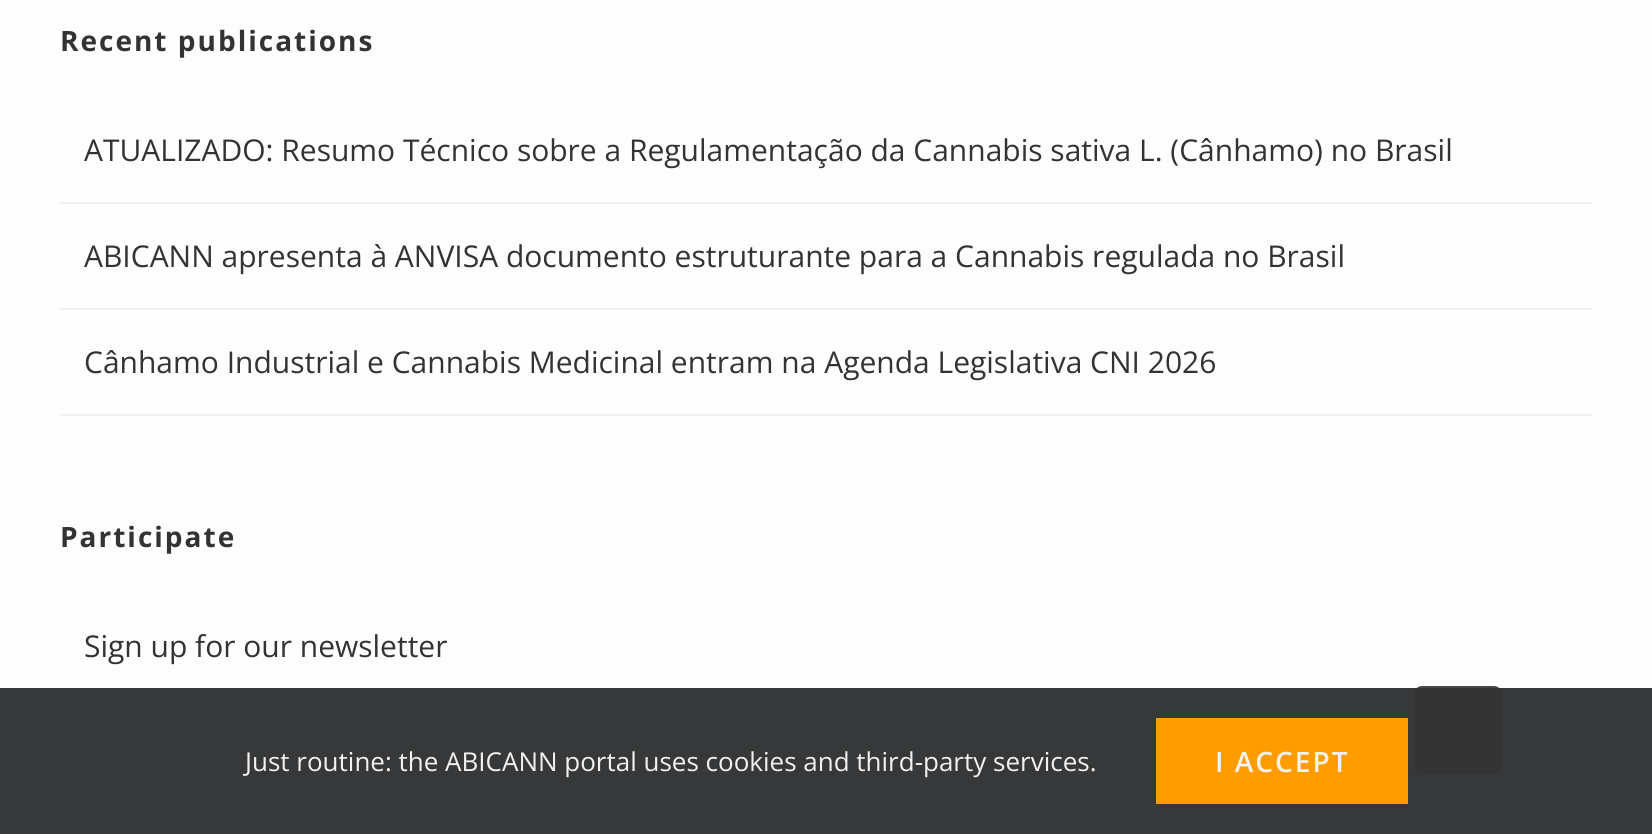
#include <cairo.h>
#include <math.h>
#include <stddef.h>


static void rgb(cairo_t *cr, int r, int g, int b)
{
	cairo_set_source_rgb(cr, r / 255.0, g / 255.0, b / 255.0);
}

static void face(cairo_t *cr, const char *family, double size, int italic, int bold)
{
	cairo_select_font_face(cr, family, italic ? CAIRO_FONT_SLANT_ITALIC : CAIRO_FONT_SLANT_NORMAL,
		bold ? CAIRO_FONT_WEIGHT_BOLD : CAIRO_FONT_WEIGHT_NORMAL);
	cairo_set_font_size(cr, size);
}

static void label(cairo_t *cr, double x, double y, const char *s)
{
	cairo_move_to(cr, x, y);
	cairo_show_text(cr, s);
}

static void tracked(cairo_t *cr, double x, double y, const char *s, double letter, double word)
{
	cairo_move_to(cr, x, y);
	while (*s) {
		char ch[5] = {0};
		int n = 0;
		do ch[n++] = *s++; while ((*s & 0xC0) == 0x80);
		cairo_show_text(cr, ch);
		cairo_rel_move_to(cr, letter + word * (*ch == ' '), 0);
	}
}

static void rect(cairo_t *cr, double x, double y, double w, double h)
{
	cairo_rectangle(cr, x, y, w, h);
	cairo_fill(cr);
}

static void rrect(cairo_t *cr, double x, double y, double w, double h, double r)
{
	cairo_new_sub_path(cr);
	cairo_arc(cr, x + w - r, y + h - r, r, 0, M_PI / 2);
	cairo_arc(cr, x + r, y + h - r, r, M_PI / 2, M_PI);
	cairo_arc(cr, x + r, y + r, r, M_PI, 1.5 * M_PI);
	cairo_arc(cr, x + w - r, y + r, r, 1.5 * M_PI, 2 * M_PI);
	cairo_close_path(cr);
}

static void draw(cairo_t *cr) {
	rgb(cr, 253, 253, 253);
	cairo_paint(cr);
	face(cr, "Open Sans", 28, 0, 1);
	rgb(cr, 51, 51, 51);
	tracked(cr, 60, 51, "Recent publications", 2, 0);
	rgb(cr, 241, 241, 241);
	rect(cr, 60, 202, 1532, 2);
	face(cr, "Open Sans", 30, 0, 0);
	rgb(cr, 51, 51, 51);
	label(cr, 84, 161, "ATUALIZADO: Resumo Técnico sobre a Regulamentação da Cannabis sativa L. (Cânhamo) no Brasil");
	rgb(cr, 241, 241, 241);
	rect(cr, 60, 308, 1532, 2);
	rgb(cr, 51, 51, 51);
	label(cr, 84, 267, "ABICANN apresenta à ANVISA documento estruturante para a Cannabis regulada no Brasil");
	rgb(cr, 241, 241, 241);
	rect(cr, 60, 414, 1532, 2);
	rgb(cr, 51, 51, 51);
	label(cr, 84, 373, "Cânhamo Industrial e Cannabis Medicinal entram na Agenda Legislativa CNI 2026");
	face(cr, "Open Sans", 28, 0, 1);
	tracked(cr, 60, 547, "Participate", 2, 0);
	face(cr, "Open Sans", 30, 0, 0);
	label(cr, 84, 657, "Sign up for our newsletter");
	rgb(cr, 54, 56, 57);
	rect(cr, 0, 688, 1652, 146);
	face(cr, "Open Sans", 26, 0, 0);
	rgb(cr, 241, 241, 241);
	label(cr, 245, 771, "Just routine: the ABICANN portal uses cookies and third-party services.");
	rgb(cr, 255, 156, 0);
	rect(cr, 1156, 718, 252, 86);
	face(cr, "Open Sans SemiBold", 28, 0, 0);
	rgb(cr, 241, 241, 241);
	tracked(cr, 1215, 772, "I ACCEPT", 2, 0);
	cairo_set_source_rgba(cr, 0.2, 0.2, 0.2, 0.9);
	rrect(cr, 1414, 686, 88, 88, 8);
	cairo_fill(cr);
}

int main(void) {
	cairo_surface_t *surface = cairo_image_surface_create(CAIRO_FORMAT_RGB24, 1652, 834);
	cairo_t *cr = cairo_create(surface);
	cairo_font_options_t *options = cairo_font_options_create();
	cairo_font_options_set_hint_metrics(options, CAIRO_HINT_METRICS_OFF);
	cairo_font_options_set_hint_style(options, CAIRO_HINT_STYLE_NONE);
	cairo_set_font_options(cr, options);
	cairo_set_miter_limit(cr, 4);
	draw(cr);
	cairo_surface_write_to_png(surface, "render.png");
	cairo_font_options_destroy(options);
	cairo_destroy(cr);
	cairo_surface_destroy(surface);
	return 0;
}
